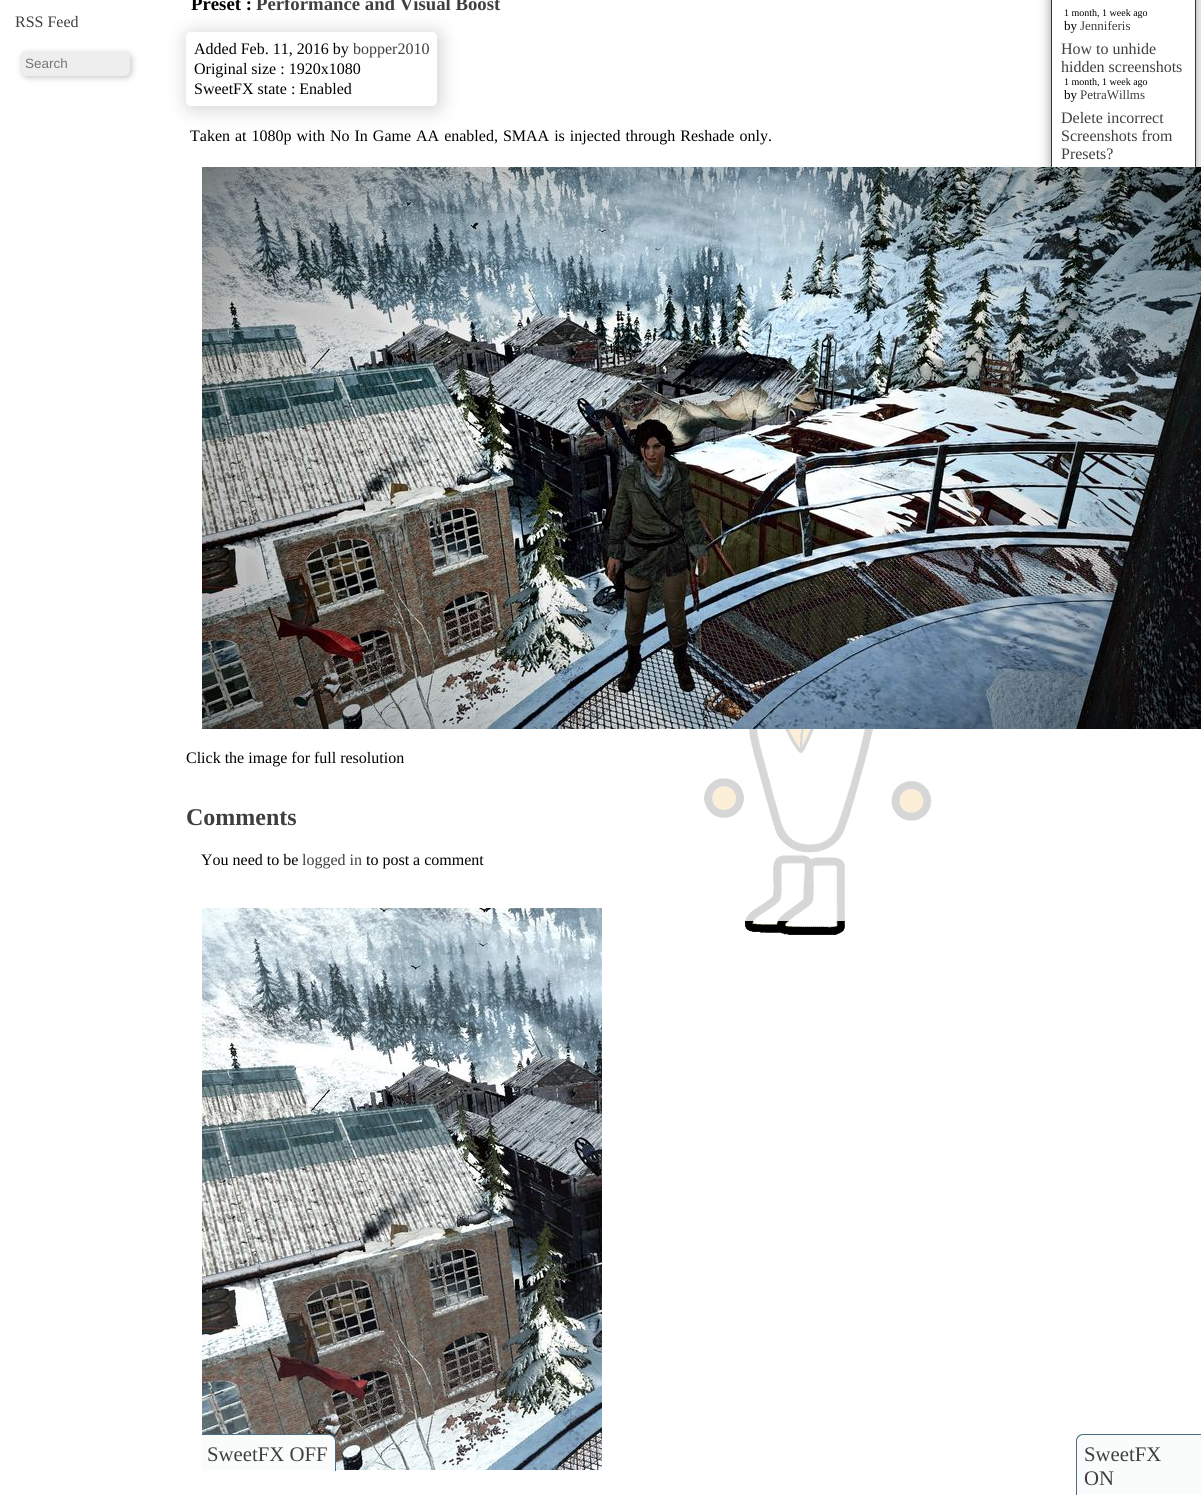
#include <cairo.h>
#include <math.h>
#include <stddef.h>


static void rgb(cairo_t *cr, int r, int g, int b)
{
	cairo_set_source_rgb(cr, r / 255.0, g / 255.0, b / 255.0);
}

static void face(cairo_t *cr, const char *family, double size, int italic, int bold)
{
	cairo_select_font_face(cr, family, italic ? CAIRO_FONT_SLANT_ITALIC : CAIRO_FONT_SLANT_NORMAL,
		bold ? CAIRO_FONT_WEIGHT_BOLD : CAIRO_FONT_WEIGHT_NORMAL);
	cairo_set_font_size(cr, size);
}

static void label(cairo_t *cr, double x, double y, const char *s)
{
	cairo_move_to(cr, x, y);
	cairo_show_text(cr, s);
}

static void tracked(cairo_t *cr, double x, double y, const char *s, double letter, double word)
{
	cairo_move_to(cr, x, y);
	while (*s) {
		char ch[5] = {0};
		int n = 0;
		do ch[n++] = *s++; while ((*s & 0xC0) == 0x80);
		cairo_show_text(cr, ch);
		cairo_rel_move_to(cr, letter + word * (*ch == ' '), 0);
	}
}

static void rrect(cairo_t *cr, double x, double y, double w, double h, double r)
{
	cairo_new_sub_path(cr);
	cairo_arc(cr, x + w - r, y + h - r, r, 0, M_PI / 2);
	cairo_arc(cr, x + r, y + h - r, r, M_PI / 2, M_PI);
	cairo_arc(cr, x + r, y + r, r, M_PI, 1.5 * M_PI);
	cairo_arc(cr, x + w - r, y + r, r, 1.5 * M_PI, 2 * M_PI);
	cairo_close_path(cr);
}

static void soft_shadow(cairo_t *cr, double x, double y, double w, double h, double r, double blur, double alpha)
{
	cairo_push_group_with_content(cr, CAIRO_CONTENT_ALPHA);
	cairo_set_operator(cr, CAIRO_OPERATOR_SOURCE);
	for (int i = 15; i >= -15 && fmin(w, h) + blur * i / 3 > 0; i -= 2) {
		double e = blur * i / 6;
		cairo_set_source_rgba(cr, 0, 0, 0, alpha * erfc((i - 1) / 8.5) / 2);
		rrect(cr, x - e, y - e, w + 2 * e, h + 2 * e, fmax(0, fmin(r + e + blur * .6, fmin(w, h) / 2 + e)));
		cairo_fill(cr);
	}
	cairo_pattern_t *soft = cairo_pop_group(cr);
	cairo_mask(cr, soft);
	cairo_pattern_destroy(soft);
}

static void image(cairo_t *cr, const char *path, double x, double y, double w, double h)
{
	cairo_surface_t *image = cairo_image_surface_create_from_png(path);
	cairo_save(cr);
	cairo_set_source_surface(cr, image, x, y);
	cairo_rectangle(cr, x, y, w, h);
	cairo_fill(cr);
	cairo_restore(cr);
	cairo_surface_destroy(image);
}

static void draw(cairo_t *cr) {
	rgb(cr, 255, 255, 255);
	cairo_paint(cr);
	image(cr, "image0.png", 704, 729, 228, 206);
	face(cr, "Liberation Serif", 18.75, 0, 1);
	rgb(cr, 0, 0, 0);
	label(cr, 191, 10, "Preset :");
	rgb(cr, 63, 63, 63);
	label(cr, 256, 10, "Performance and Visual Boost");
	rgb(cr, 182, 182, 182);
	soft_shadow(cr, 188, 34, 251, 74, 5, 10, 0.68);
	rgb(cr, 255, 255, 255);
	rrect(cr, 186, 32, 251, 74, 5);
	cairo_fill(cr);
	face(cr, "Liberation Serif", 16, 0, 0);
	rgb(cr, 0, 0, 0);
	label(cr, 194, 54, "Added Feb. 11, 2016 by");
	rgb(cr, 63, 63, 63);
	label(cr, 353, 54, "bopper2010");
	rgb(cr, 0, 0, 0);
	label(cr, 194, 74, "Original size : 1920x1080");
	label(cr, 194, 94, "SweetFX state : Enabled");
	tracked(cr, 190, 141, "Taken at 1080p with No In Game AA enabled, SMAA is injected through Reshade only.", 0, 1);
	label(cr, 186, 763, "Click the image for full resolution");
	face(cr, "Liberation Serif", 24, 0, 1);
	rgb(cr, 63, 63, 63);
	label(cr, 186, 825, "Comments");
	face(cr, "Liberation Serif", 16, 0, 0);
	rgb(cr, 0, 0, 0);
	label(cr, 201, 865, "You need to be");
	rgb(cr, 63, 63, 63);
	label(cr, 302, 865, "logged in");
	rgb(cr, 0, 0, 0);
	label(cr, 366, 865, "to post a comment");
	cairo_save(cr);
	cairo_set_fill_rule(cr, CAIRO_FILL_RULE_EVEN_ODD);
	cairo_new_path(cr);
	cairo_move_to(cr, 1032, 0);
	cairo_line_to(cr, 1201, 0);
	cairo_line_to(cr, 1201, 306);
	cairo_line_to(cr, 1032, 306);
	cairo_close_path(cr);
	cairo_move_to(cr, 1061, -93);
	cairo_line_to(cr, 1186, -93);
	cairo_curve_to(cr, 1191.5, -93, 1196, -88.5, 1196, -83);
	cairo_line_to(cr, 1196, 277);
	cairo_curve_to(cr, 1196, 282.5, 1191.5, 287, 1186, 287);
	cairo_line_to(cr, 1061, 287);
	cairo_curve_to(cr, 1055.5, 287, 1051, 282.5, 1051, 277);
	cairo_line_to(cr, 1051, -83);
	cairo_curve_to(cr, 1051, -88.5, 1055.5, -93, 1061, -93);
	cairo_close_path(cr);
	cairo_clip(cr);
	rgb(cr, 153, 153, 153);
	soft_shadow(cr, 1051, -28, 145, 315, 10, 6, 1);
	cairo_restore(cr);
	cairo_rectangle(cr, 1051.5, -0.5, 144, 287);
	rgb(cr, 51, 51, 51);
	cairo_set_line_width(cr, 1);
	cairo_stroke(cr);
	image(cr, "image1.png", 202, 167, 999, 562);
	image(cr, "image2.png", 202, 908, 400, 562);
	rgb(cr, 250, 252, 252);
	cairo_new_path(cr);
	cairo_move_to(cr, 202, 1435);
	cairo_line_to(cr, 329, 1435);
	cairo_curve_to(cr, 332.5, 1435, 335, 1437.5, 335, 1441);
	cairo_line_to(cr, 335, 1471);
	cairo_line_to(cr, 202, 1471);
	cairo_close_path(cr);
	cairo_fill(cr);
	rgb(cr, 76, 112, 131);
	cairo_set_fill_rule(cr, CAIRO_FILL_RULE_EVEN_ODD);
	cairo_new_path(cr);
	cairo_move_to(cr, 202, 1434);
	cairo_line_to(cr, 329, 1434);
	cairo_curve_to(cr, 333, 1434, 336, 1437, 336, 1441);
	cairo_line_to(cr, 336, 1471);
	cairo_line_to(cr, 202, 1471);
	cairo_close_path(cr);
	cairo_move_to(cr, 202, 1435);
	cairo_line_to(cr, 329, 1435);
	cairo_curve_to(cr, 332, 1435, 335, 1438, 335, 1441);
	cairo_line_to(cr, 335, 1471);
	cairo_line_to(cr, 202, 1471);
	cairo_close_path(cr);
	cairo_fill(cr);
	face(cr, "Liberation Serif", 20.75, 0, 0);
	rgb(cr, 63, 63, 63);
	label(cr, 207, 1461, "SweetFX OFF");
	rgb(cr, 250, 252, 252);
	cairo_new_path(cr);
	cairo_move_to(cr, 1083, 1435);
	cairo_line_to(cr, 1201, 1435);
	cairo_line_to(cr, 1201, 1495);
	cairo_line_to(cr, 1077, 1495);
	cairo_line_to(cr, 1077, 1441);
	cairo_curve_to(cr, 1077, 1437.5, 1079.5, 1435, 1083, 1435);
	cairo_close_path(cr);
	cairo_fill(cr);
	rgb(cr, 76, 112, 131);
	cairo_new_path(cr);
	cairo_move_to(cr, 1083, 1434);
	cairo_line_to(cr, 1201, 1434);
	cairo_line_to(cr, 1201, 1495);
	cairo_line_to(cr, 1076, 1495);
	cairo_line_to(cr, 1076, 1441);
	cairo_curve_to(cr, 1076, 1437, 1079, 1434, 1083, 1434);
	cairo_close_path(cr);
	cairo_move_to(cr, 1083, 1435);
	cairo_line_to(cr, 1201, 1435);
	cairo_line_to(cr, 1201, 1495);
	cairo_line_to(cr, 1077, 1495);
	cairo_line_to(cr, 1077, 1441);
	cairo_curve_to(cr, 1077, 1438, 1080, 1435, 1083, 1435);
	cairo_close_path(cr);
	cairo_fill(cr);
	rgb(cr, 63, 63, 63);
	label(cr, 1084, 1461, "SweetFX");
	label(cr, 1084, 1485, "ON");
	face(cr, "Liberation Serif", 16, 0, 0);
	label(cr, 15, 27, "RSS Feed");
	rgb(cr, 50, 50, 50);
	soft_shadow(cr, 22, 53, 110, 25, 6, 3, 0.25);
	rgb(cr, 238, 238, 238);
	rrect(cr, 20, 51, 110, 25, 6);
	cairo_fill(cr);
	face(cr, "Liberation Sans", 13.5, 0, 0);
	rgb(cr, 117, 117, 117);
	label(cr, 25, 68, "Search");
	face(cr, "Liberation Serif", 10, 0, 0);
	rgb(cr, 0, 0, 0);
	label(cr, 1064, 16, "1 month, 1 week ago");
	face(cr, "Liberation Serif", 13, 0, 0);
	label(cr, 1064, 30, "by");
	rgb(cr, 63, 63, 63);
	label(cr, 1080, 30, "Jenniferis");
	face(cr, "Liberation Serif", 16, 0, 0);
	label(cr, 1061, 54, "How to unhide");
	label(cr, 1061, 72, "hidden screenshots");
	face(cr, "Liberation Serif", 10, 0, 0);
	rgb(cr, 0, 0, 0);
	label(cr, 1064, 85, "1 month, 1 week ago");
	face(cr, "Liberation Serif", 13, 0, 0);
	label(cr, 1064, 99, "by");
	rgb(cr, 63, 63, 63);
	label(cr, 1080, 99, "PetraWillms");
	face(cr, "Liberation Serif", 16, 0, 0);
	label(cr, 1061, 123, "Delete incorrect");
	label(cr, 1061, 141, "Screenshots from");
	label(cr, 1061, 159, "Presets?");
}

int main(void) {
	cairo_surface_t *surface = cairo_image_surface_create(CAIRO_FORMAT_RGB24, 1201, 1495);
	cairo_t *cr = cairo_create(surface);
	cairo_font_options_t *options = cairo_font_options_create();
	cairo_font_options_set_hint_metrics(options, CAIRO_HINT_METRICS_OFF);
	cairo_font_options_set_hint_style(options, CAIRO_HINT_STYLE_NONE);
	cairo_set_font_options(cr, options);
	cairo_set_miter_limit(cr, 4);
	draw(cr);
	cairo_surface_write_to_png(surface, "render.png");
	cairo_font_options_destroy(options);
	cairo_destroy(cr);
	cairo_surface_destroy(surface);
	return 0;
}
